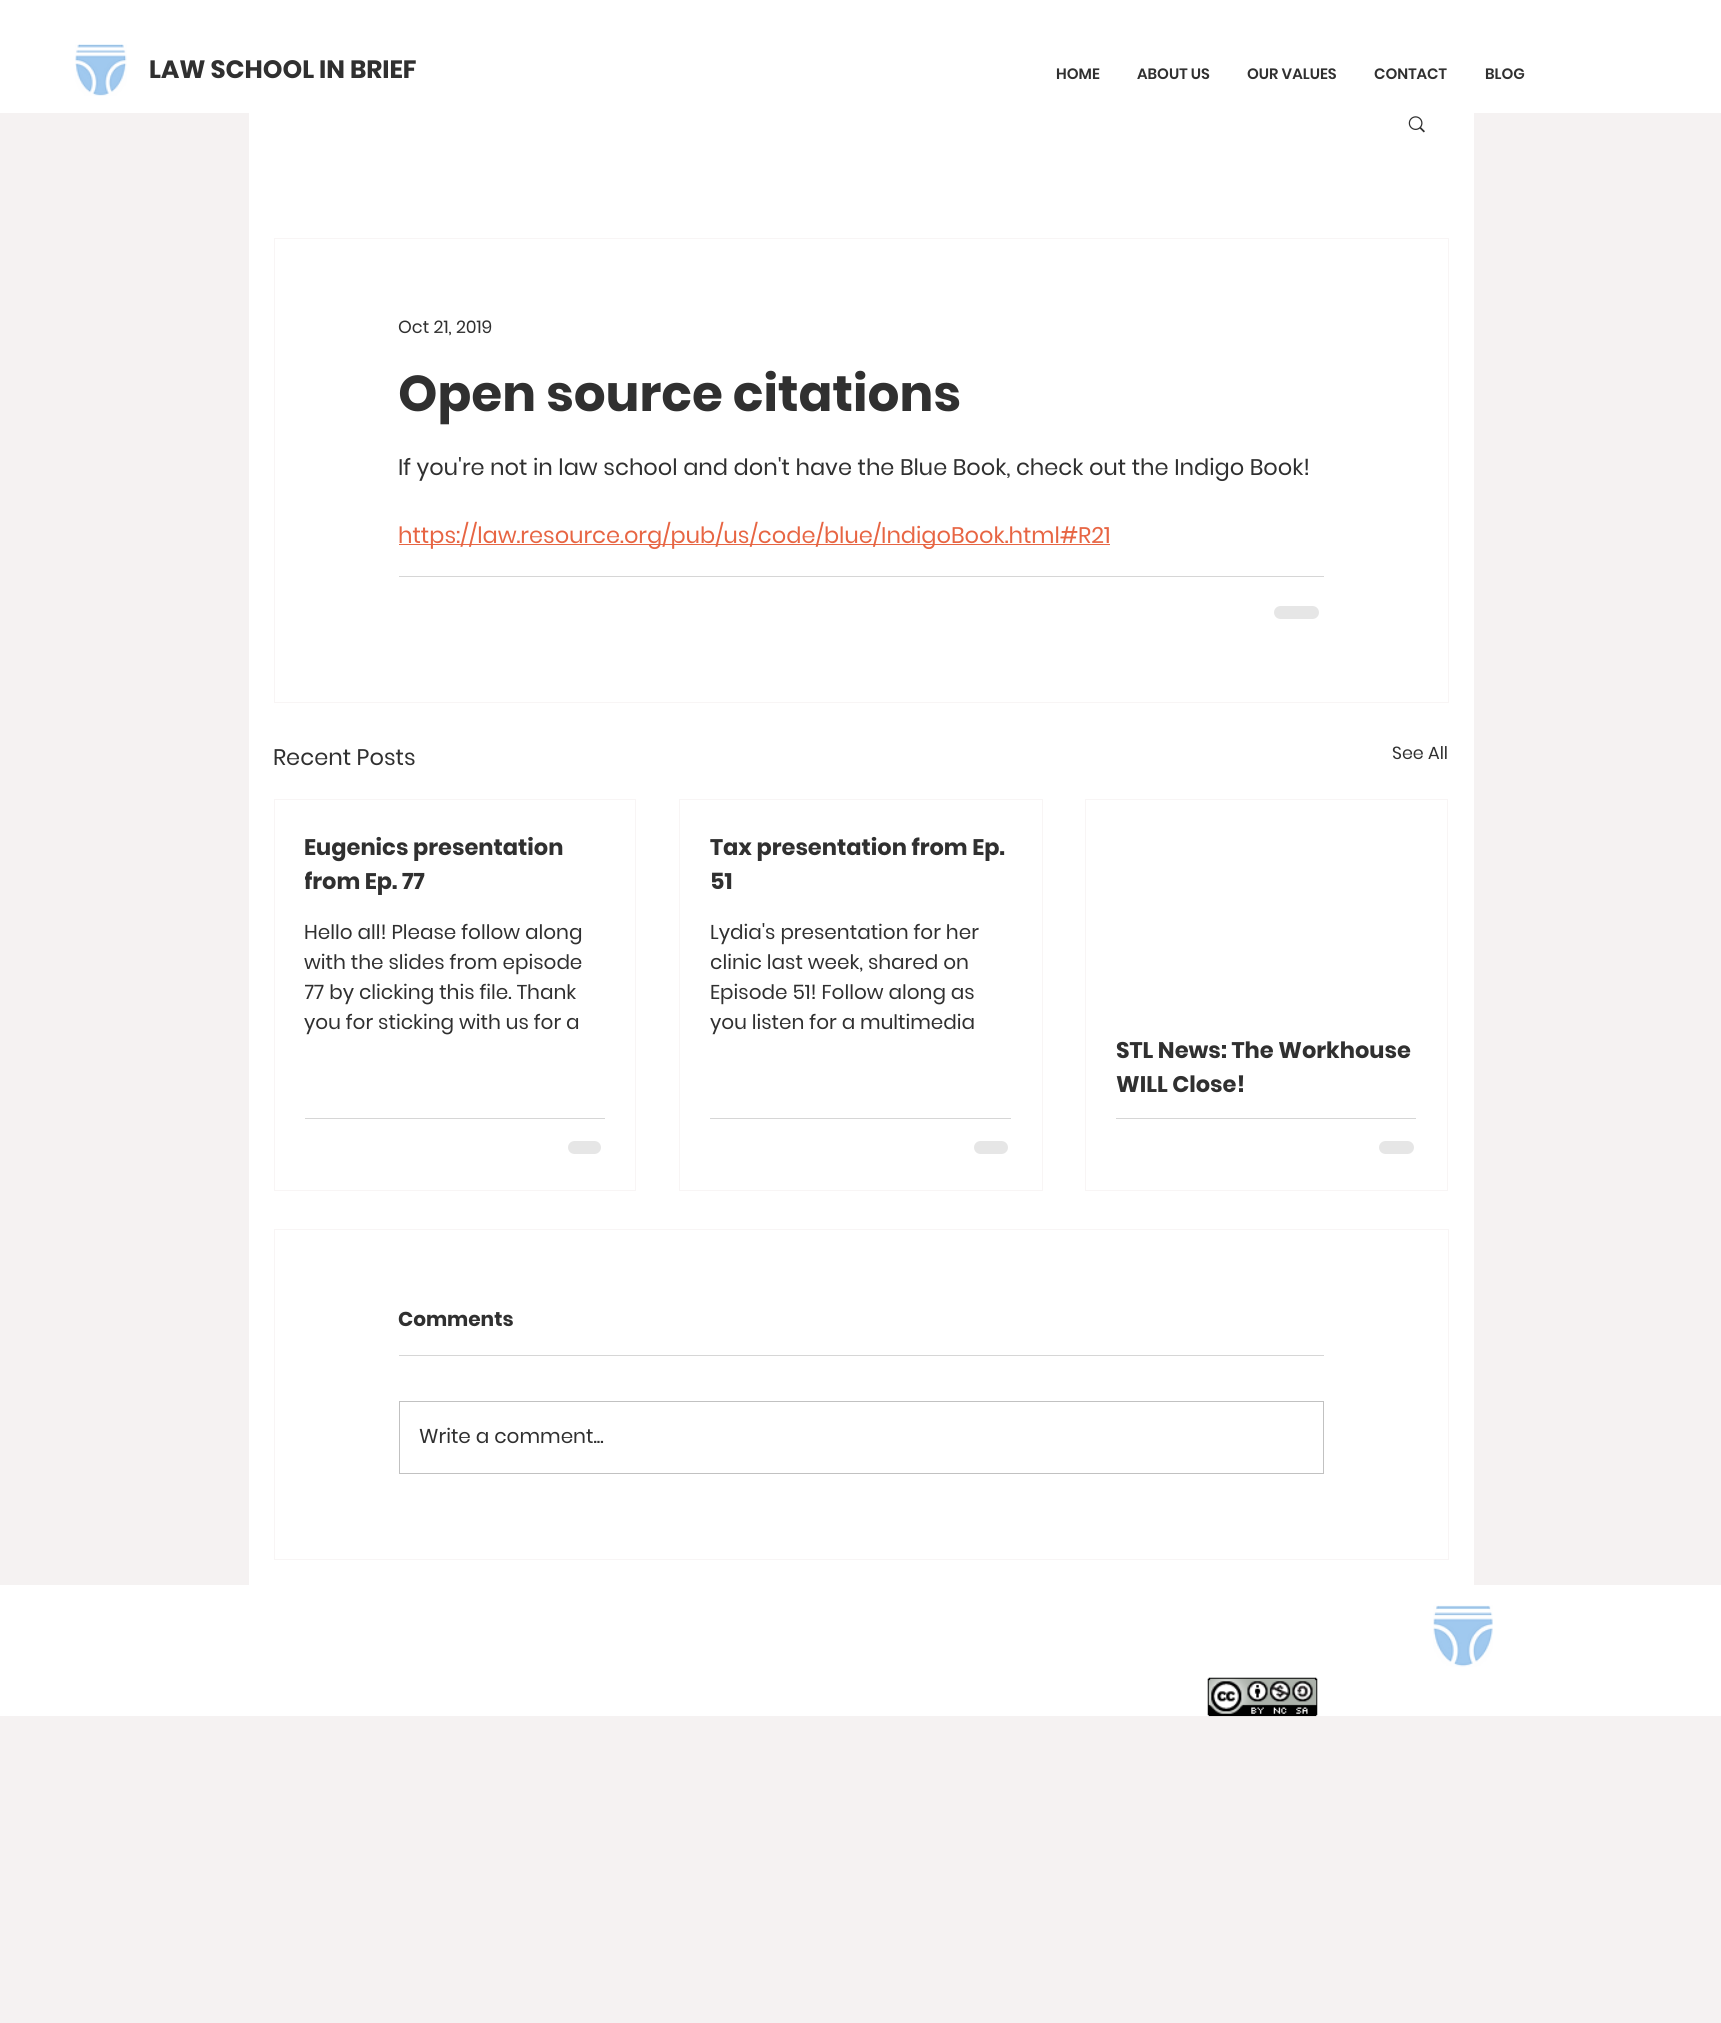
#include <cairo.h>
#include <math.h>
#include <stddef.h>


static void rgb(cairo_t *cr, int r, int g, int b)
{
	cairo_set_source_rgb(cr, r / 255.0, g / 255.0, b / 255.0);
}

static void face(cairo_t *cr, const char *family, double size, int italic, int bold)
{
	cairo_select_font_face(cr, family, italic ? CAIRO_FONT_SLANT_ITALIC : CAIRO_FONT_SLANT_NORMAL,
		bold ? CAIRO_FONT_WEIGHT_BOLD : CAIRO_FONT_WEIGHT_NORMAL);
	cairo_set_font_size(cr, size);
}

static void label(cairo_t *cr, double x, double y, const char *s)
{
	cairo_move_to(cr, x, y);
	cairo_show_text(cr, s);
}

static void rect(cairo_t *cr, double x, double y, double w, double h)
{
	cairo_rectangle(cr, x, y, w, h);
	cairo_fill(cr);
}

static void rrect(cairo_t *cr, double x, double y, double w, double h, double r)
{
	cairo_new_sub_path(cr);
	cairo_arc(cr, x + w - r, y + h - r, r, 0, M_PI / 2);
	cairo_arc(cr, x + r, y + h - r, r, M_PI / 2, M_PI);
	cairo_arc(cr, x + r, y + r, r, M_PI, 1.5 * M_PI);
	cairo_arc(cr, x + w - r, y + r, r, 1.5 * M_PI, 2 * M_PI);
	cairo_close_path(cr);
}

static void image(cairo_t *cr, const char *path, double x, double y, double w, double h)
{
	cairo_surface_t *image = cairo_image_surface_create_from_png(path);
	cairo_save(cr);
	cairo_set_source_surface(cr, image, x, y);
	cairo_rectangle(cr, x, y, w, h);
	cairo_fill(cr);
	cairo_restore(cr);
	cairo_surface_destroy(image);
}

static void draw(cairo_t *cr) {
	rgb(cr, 245, 242, 242);
	cairo_paint(cr);
	rgb(cr, 255, 255, 255);
	rect(cr, 0, 0, 1721, 113);
	image(cr, "image0.png", 75, 44, 52, 52);
	face(cr, "Poppins", 25, 0, 1);
	rgb(cr, 48, 48, 48);
	label(cr, 149, 78, "LAW SCHOOL IN BRIEF");
	face(cr, "Poppins SemiBold", 15, 0, 0);
	label(cr, 1056, 79, "HOME");
	label(cr, 1137, 79, "ABOUT US");
	label(cr, 1247, 79, "OUR VALUES");
	label(cr, 1374, 79, "CONTACT");
	label(cr, 1485, 79, "BLOG");
	rgb(cr, 255, 255, 255);
	rect(cr, 249, 113, 1225, 1472);
	image(cr, "image1.png", 1408, 116, 17, 17);
	cairo_rectangle(cr, 274.5, 238.5, 1174, 464);
	rgb(cr, 248, 245, 245);
	cairo_set_line_width(cr, 1);
	cairo_stroke(cr);
	face(cr, "Poppins", 17.5, 0, 0);
	rgb(cr, 48, 48, 48);
	label(cr, 398, 333, "Oct 21, 2019");
	face(cr, "Poppins", 50, 0, 1);
	label(cr, 398, 411, "Open source citations");
	face(cr, "Poppins", 22.5, 0, 0);
	label(cr, 398, 475, "If you're not in law school and don't have the Blue Book, check out the Indigo Book!");
	rgb(cr, 231, 101, 67);
	rect(cr, 399, 544, 711, 1);
	label(cr, 398, 543, "https://law.resource.org/pub/us/code/blue/IndigoBook.html#R21");
	rgb(cr, 214, 214, 214);
	rect(cr, 399, 576, 925, 1);
	rgb(cr, 230, 230, 230);
	rrect(cr, 1274, 606, 45, 13, 6.5);
	cairo_fill(cr);
	rgb(cr, 48, 48, 48);
	label(cr, 273, 765, "Recent Posts");
	face(cr, "Poppins", 17.5, 0, 0);
	label(cr, 1392, 759, "See All");
	cairo_rectangle(cr, 274.5, 799.5, 361, 391);
	rgb(cr, 248, 245, 245);
	cairo_stroke(cr);
	face(cr, "Poppins", 22.5, 0, 1);
	rgb(cr, 48, 48, 48);
	label(cr, 304, 855, "Eugenics presentation");
	cairo_save(cr);
	cairo_rectangle(cr, 305, 830, 300, 68);
	cairo_clip(cr);
	label(cr, 304, 889, "from Ep. 77");
	cairo_restore(cr);
	face(cr, "Poppins", 20, 0, 0);
	label(cr, 304, 939, "Hello all! Please follow along");
	label(cr, 304, 969, "with the slides from episode");
	cairo_save(cr);
	cairo_rectangle(cr, 305, 918, 300, 120);
	cairo_clip(cr);
	label(cr, 304, 999, "77 by clicking this file. Thank");
	cairo_restore(cr);
	label(cr, 304, 1029, "you for sticking with us for a");
	rgb(cr, 214, 214, 214);
	rect(cr, 305, 1118, 300, 1);
	rgb(cr, 230, 230, 230);
	rrect(cr, 568, 1141, 33, 13, 6.5);
	cairo_fill(cr);
	cairo_rectangle(cr, 679.5, 799.5, 363, 391);
	rgb(cr, 248, 245, 245);
	cairo_stroke(cr);
	face(cr, "Poppins", 22.5, 0, 1);
	rgb(cr, 48, 48, 48);
	label(cr, 710, 855, "Tax presentation from Ep.");
	label(cr, 710, 889, "51");
	face(cr, "Poppins", 20, 0, 0);
	label(cr, 710, 939, "Lydia's presentation for her");
	label(cr, 710, 969, "clinic last week, shared on");
	label(cr, 710, 999, "Episode 51! Follow along as");
	label(cr, 710, 1029, "you listen for a multimedia");
	rgb(cr, 214, 214, 214);
	rect(cr, 710, 1118, 301, 1);
	rgb(cr, 230, 230, 230);
	rrect(cr, 974, 1141, 34, 13, 6.5);
	cairo_fill(cr);
	cairo_rectangle(cr, 1085.5, 799.5, 362, 391);
	rgb(cr, 248, 245, 245);
	cairo_stroke(cr);
	face(cr, "Poppins", 22.5, 0, 1);
	rgb(cr, 48, 48, 48);
	label(cr, 1116, 1058, "STL News: The Workhouse");
	label(cr, 1116, 1092, "WILL Close!");
	rgb(cr, 214, 214, 214);
	rect(cr, 1116, 1118, 300, 1);
	rgb(cr, 230, 230, 230);
	rrect(cr, 1379, 1141, 35, 13, 6.5);
	cairo_fill(cr);
	cairo_rectangle(cr, 274.5, 1229.5, 1174, 330);
	rgb(cr, 248, 245, 245);
	cairo_stroke(cr);
	face(cr, "Poppins", 20, 0, 1);
	rgb(cr, 48, 48, 48);
	label(cr, 398, 1326, "Comments");
	rgb(cr, 214, 214, 214);
	rect(cr, 399, 1355, 925, 1);
	cairo_rectangle(cr, 399.5, 1401.5, 924, 72);
	rgb(cr, 193, 193, 193);
	cairo_stroke(cr);
	face(cr, "Poppins", 20, 0, 0);
	rgb(cr, 48, 48, 48);
	label(cr, 419, 1443, "Write a comment...");
	rgb(cr, 255, 255, 255);
	rect(cr, 0, 1585, 1721, 131);
	image(cr, "image2.png", 1433, 1605, 60, 62);
	image(cr, "image3.png", 1207, 1677, 111, 40);
}

int main(void) {
	cairo_surface_t *surface = cairo_image_surface_create(CAIRO_FORMAT_RGB24, 1721, 2023);
	cairo_t *cr = cairo_create(surface);
	cairo_font_options_t *options = cairo_font_options_create();
	cairo_font_options_set_hint_metrics(options, CAIRO_HINT_METRICS_OFF);
	cairo_font_options_set_hint_style(options, CAIRO_HINT_STYLE_NONE);
	cairo_set_font_options(cr, options);
	cairo_set_miter_limit(cr, 4);
	draw(cr);
	cairo_surface_write_to_png(surface, "render.png");
	cairo_font_options_destroy(options);
	cairo_destroy(cr);
	cairo_surface_destroy(surface);
	return 0;
}
